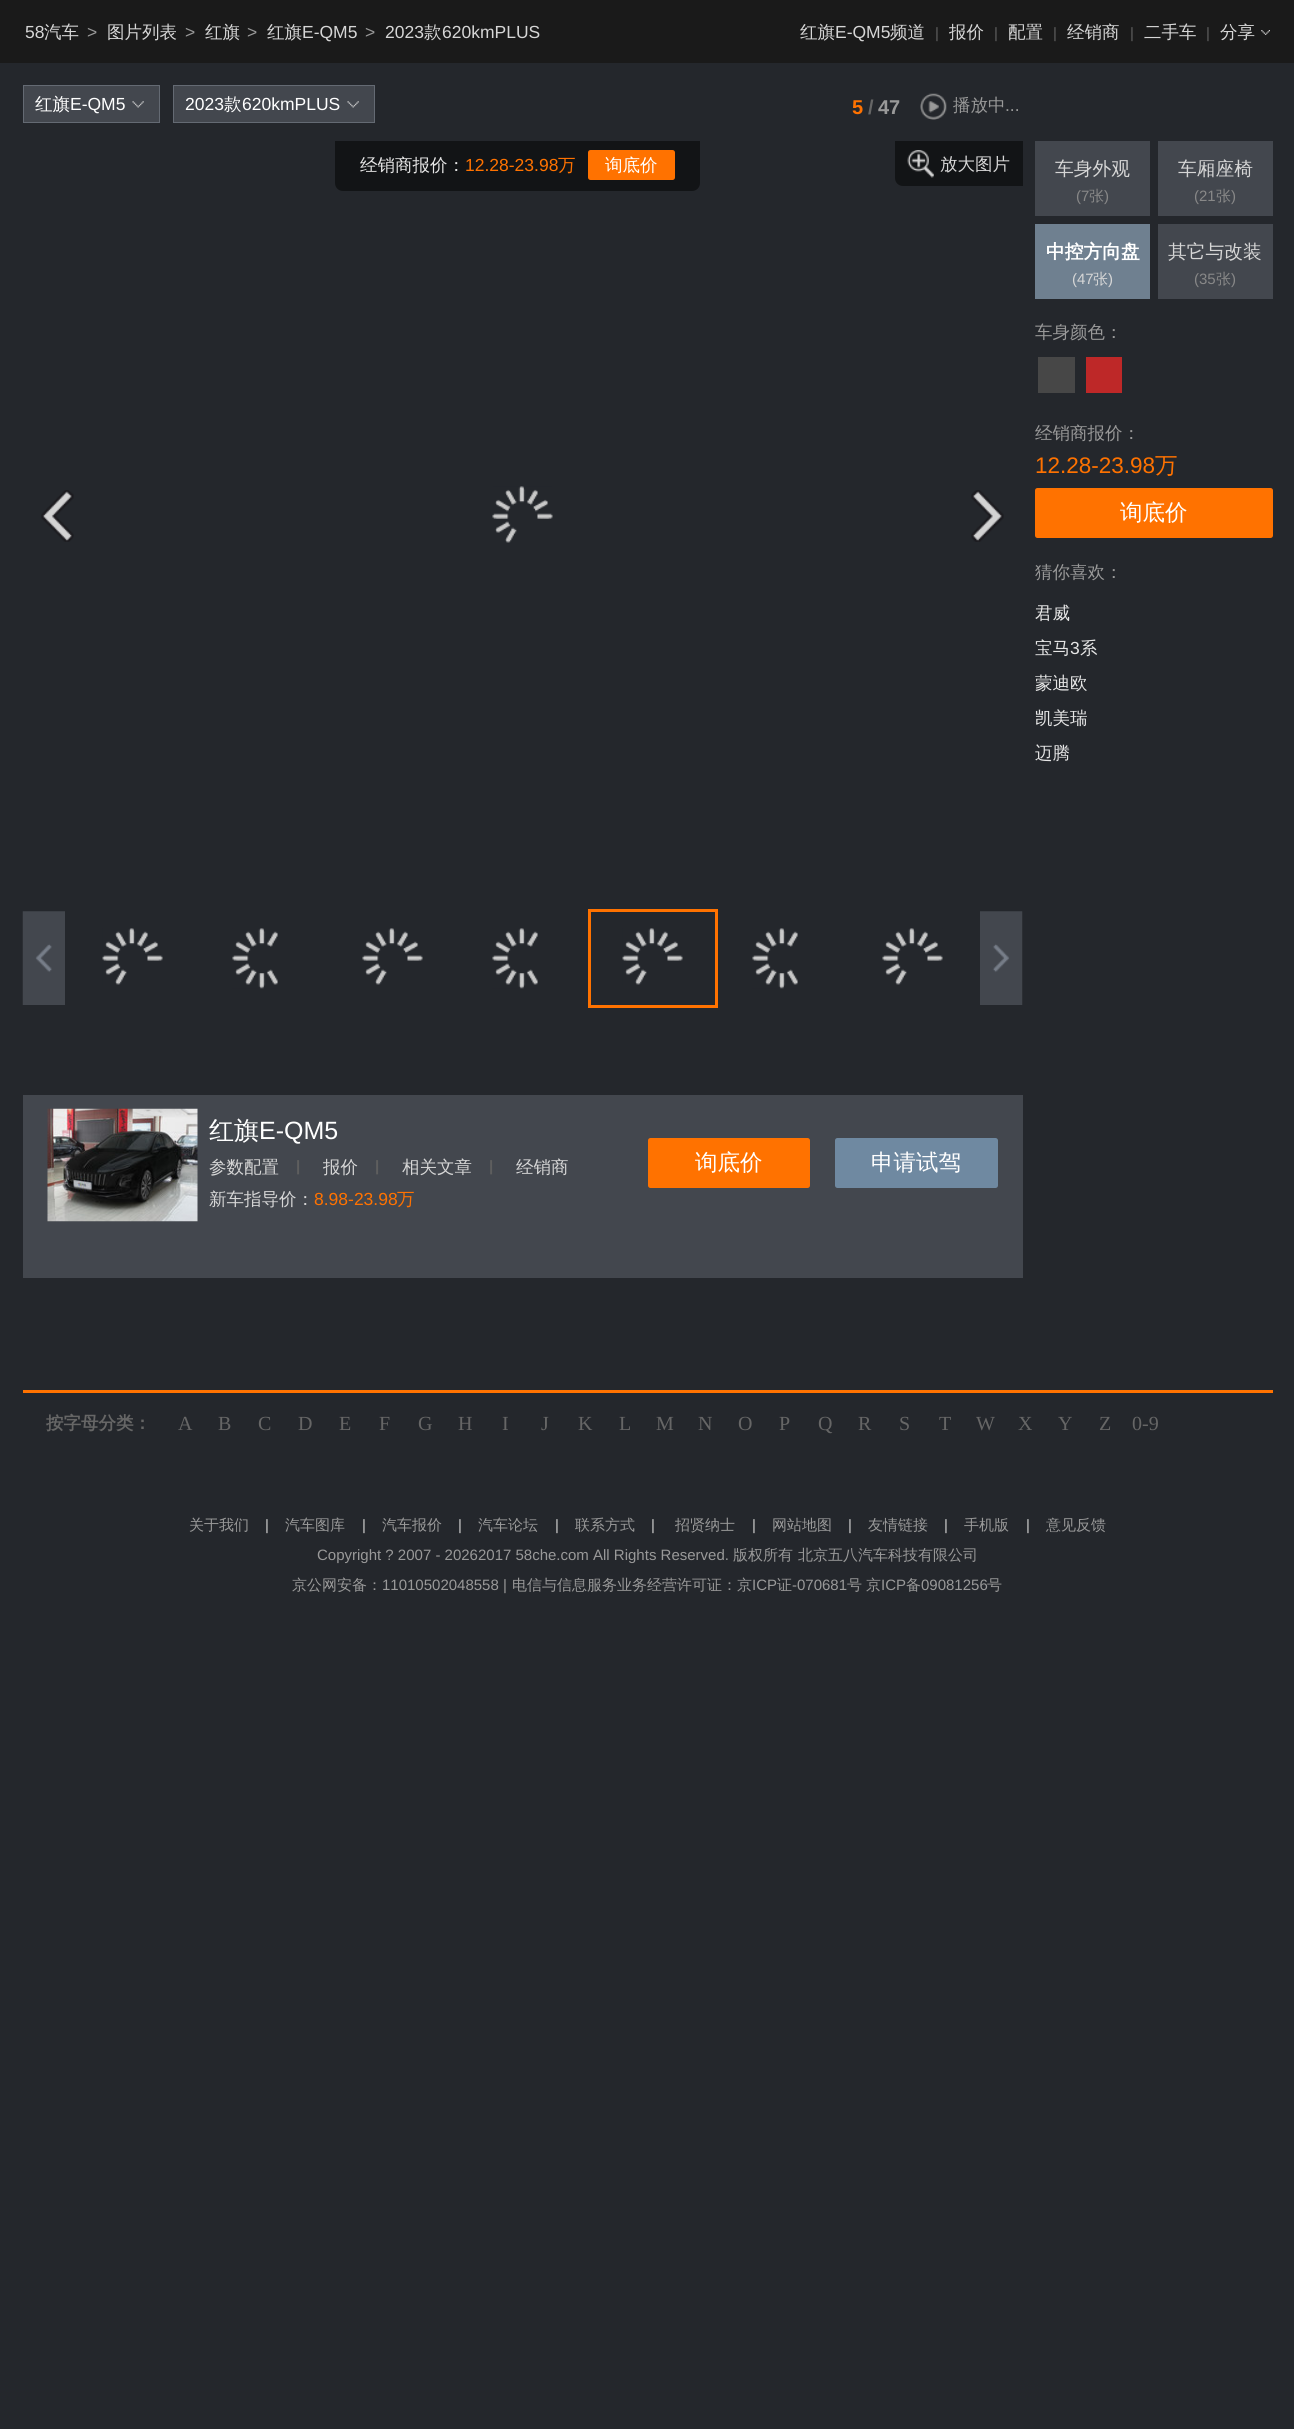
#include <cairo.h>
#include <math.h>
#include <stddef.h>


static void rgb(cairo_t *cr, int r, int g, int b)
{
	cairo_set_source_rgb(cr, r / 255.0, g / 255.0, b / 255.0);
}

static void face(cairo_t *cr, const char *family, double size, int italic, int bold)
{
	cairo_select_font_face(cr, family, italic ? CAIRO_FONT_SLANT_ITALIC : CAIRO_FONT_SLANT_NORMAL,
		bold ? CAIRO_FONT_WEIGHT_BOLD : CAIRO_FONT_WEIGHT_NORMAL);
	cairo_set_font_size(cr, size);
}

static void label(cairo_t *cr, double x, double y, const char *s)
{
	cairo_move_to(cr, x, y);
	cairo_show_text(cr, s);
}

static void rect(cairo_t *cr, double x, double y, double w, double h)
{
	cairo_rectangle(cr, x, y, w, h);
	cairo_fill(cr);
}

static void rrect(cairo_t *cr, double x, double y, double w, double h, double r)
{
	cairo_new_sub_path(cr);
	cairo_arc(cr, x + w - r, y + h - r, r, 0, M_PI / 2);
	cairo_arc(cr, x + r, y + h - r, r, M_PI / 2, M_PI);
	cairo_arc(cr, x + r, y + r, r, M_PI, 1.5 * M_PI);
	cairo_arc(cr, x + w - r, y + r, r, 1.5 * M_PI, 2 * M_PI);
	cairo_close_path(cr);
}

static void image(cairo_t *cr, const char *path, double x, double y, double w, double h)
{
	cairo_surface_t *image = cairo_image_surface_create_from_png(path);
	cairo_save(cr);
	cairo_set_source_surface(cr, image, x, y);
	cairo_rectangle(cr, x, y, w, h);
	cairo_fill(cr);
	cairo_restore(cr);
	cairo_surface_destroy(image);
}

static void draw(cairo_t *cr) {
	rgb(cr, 36, 39, 44);
	cairo_paint(cr);
	rgb(cr, 26, 26, 26);
	rect(cr, 0, 0, 1294, 63);
	face(cr, "Liberation Sans", 17.5, 0, 0);
	rgb(cr, 214, 214, 214);
	label(cr, 25, 38, "58");
	face(cr, "WenQuanYi Zen Hei Medium", 17.5, 0, 0);
	label(cr, 44, 38, "汽车");
	face(cr, "Liberation Sans", 17.5, 0, 0);
	rgb(cr, 153, 153, 153);
	label(cr, 87, 38, ">");
	face(cr, "WenQuanYi Zen Hei Medium", 17.5, 0, 0);
	rgb(cr, 214, 214, 214);
	label(cr, 107, 38, "图片列表");
	face(cr, "Liberation Sans", 17.5, 0, 0);
	rgb(cr, 153, 153, 153);
	label(cr, 185, 38, ">");
	face(cr, "WenQuanYi Zen Hei Medium", 17.5, 0, 0);
	rgb(cr, 214, 214, 214);
	label(cr, 205, 38, "红旗");
	face(cr, "Liberation Sans", 17.5, 0, 0);
	rgb(cr, 153, 153, 153);
	label(cr, 247, 38, ">");
	face(cr, "WenQuanYi Zen Hei Medium", 17.5, 0, 0);
	rgb(cr, 214, 214, 214);
	label(cr, 267, 38, "红旗");
	face(cr, "Liberation Sans", 17.5, 0, 0);
	label(cr, 302, 38, "E-QM5");
	rgb(cr, 153, 153, 153);
	label(cr, 365, 38, ">");
	rgb(cr, 214, 214, 214);
	label(cr, 385, 38, "2023");
	face(cr, "WenQuanYi Zen Hei Medium", 17.5, 0, 0);
	label(cr, 424, 38, "款");
	face(cr, "Liberation Sans", 17.5, 0, 0);
	label(cr, 442, 38, "620kmPLUS");
	face(cr, "WenQuanYi Zen Hei Medium", 17.5, 0, 0);
	label(cr, 800, 38, "红旗");
	face(cr, "Liberation Sans", 17.5, 0, 0);
	label(cr, 835, 38, "E-QM5");
	face(cr, "WenQuanYi Zen Hei Medium", 17.5, 0, 0);
	label(cr, 890, 38, "频道");
	face(cr, "Liberation Sans", 15, 0, 0);
	rgb(cr, 94, 94, 94);
	label(cr, 935, 38, "|");
	face(cr, "WenQuanYi Zen Hei Medium", 17.5, 0, 0);
	rgb(cr, 214, 214, 214);
	label(cr, 949, 38, "报价");
	face(cr, "Liberation Sans", 15, 0, 0);
	rgb(cr, 94, 94, 94);
	label(cr, 994, 38, "|");
	face(cr, "WenQuanYi Zen Hei Medium", 17.5, 0, 0);
	rgb(cr, 214, 214, 214);
	label(cr, 1008, 38, "配置");
	face(cr, "Liberation Sans", 15, 0, 0);
	rgb(cr, 94, 94, 94);
	label(cr, 1053, 38, "|");
	face(cr, "WenQuanYi Zen Hei Medium", 17.5, 0, 0);
	rgb(cr, 214, 214, 214);
	label(cr, 1067, 38, "经销商");
	face(cr, "Liberation Sans", 15, 0, 0);
	rgb(cr, 94, 94, 94);
	label(cr, 1130, 38, "|");
	face(cr, "WenQuanYi Zen Hei Medium", 17.5, 0, 0);
	rgb(cr, 214, 214, 214);
	label(cr, 1144, 38, "二手车");
	face(cr, "Liberation Sans", 15, 0, 0);
	rgb(cr, 94, 94, 94);
	label(cr, 1206, 38, "|");
	face(cr, "WenQuanYi Zen Hei Medium", 17.5, 0, 0);
	rgb(cr, 214, 214, 214);
	label(cr, 1220, 38, "分享");
	image(cr, "image0.png", 1261, 30, 9, 5);
	rgb(cr, 67, 71, 78);
	cairo_rectangle(cr, 23.5, 85.5, 136, 37);
	cairo_fill_preserve(cr);
	rgb(cr, 100, 106, 115);
	cairo_set_line_width(cr, 1);
	cairo_stroke(cr);
	rgb(cr, 255, 255, 255);
	label(cr, 35, 110, "红旗");
	face(cr, "Liberation Sans", 17.5, 0, 0);
	label(cr, 70, 110, "E-QM5");
	image(cr, "image1.png", 132, 101, 12, 7);
	rgb(cr, 67, 71, 78);
	cairo_rectangle(cr, 173.5, 85.5, 201, 37);
	cairo_fill_preserve(cr);
	rgb(cr, 100, 106, 115);
	cairo_stroke(cr);
	rgb(cr, 255, 255, 255);
	label(cr, 185, 110, "2023");
	face(cr, "WenQuanYi Zen Hei Medium", 17.5, 0, 0);
	label(cr, 224, 110, "款");
	face(cr, "Liberation Sans", 17.5, 0, 0);
	label(cr, 242, 110, "620kmPLUS");
	image(cr, "image2.png", 347, 101, 12, 7);
	face(cr, "Liberation Sans", 20, 0, 1);
	rgb(cr, 255, 114, 0);
	label(cr, 852, 114, "5");
	rgb(cr, 102, 102, 102);
	label(cr, 868, 114, "/");
	rgb(cr, 153, 153, 153);
	label(cr, 878, 114, "47");
	image(cr, "image3.png", 920, 93, 27, 27);
	face(cr, "WenQuanYi Zen Hei Medium", 17.5, 0, 0);
	label(cr, 953, 111, "播放中");
	face(cr, "Liberation Sans", 17.5, 0, 0);
	label(cr, 1005, 111, "...");
	rgb(cr, 18, 20, 22);
	cairo_new_path(cr);
	cairo_move_to(cr, 335, 141);
	cairo_line_to(cr, 700, 141);
	cairo_line_to(cr, 700, 183);
	cairo_curve_to(cr, 700, 187.5, 696.5, 191, 692, 191);
	cairo_line_to(cr, 343, 191);
	cairo_curve_to(cr, 338.5, 191, 335, 187.5, 335, 183);
	cairo_close_path(cr);
	cairo_fill(cr);
	face(cr, "WenQuanYi Zen Hei Medium", 17.5, 0, 0);
	rgb(cr, 230, 230, 230);
	label(cr, 360, 171, "经销商报价：");
	face(cr, "Liberation Sans", 17.5, 0, 0);
	rgb(cr, 255, 114, 0);
	label(cr, 465, 171, "12.28-23.98");
	face(cr, "WenQuanYi Zen Hei Medium", 17.5, 0, 0);
	label(cr, 558, 171, "万");
	rrect(cr, 588, 150, 87, 30, 2.5);
	cairo_fill(cr);
	rgb(cr, 255, 255, 255);
	label(cr, 605, 171, "询底价");
	rgb(cr, 18, 20, 22);
	cairo_new_path(cr);
	cairo_move_to(cr, 895, 141);
	cairo_line_to(cr, 1023, 141);
	cairo_line_to(cr, 1023, 186);
	cairo_line_to(cr, 903, 186);
	cairo_curve_to(cr, 898.5, 186, 895, 182.5, 895, 178);
	cairo_close_path(cr);
	cairo_fill(cr);
	image(cr, "image4.png", 907, 150, 27, 28);
	rgb(cr, 214, 214, 214);
	label(cr, 940, 170, "放大图片");
	image(cr, "image5.png", 492, 486, 61, 57);
	image(cr, "image6.png", 41, 490, 33, 52);
	image(cr, "image7.png", 971, 490, 33, 52);
	image(cr, "image8.png", 22, 911, 43, 94);
	image(cr, "image9.png", 102, 928, 61, 57);
	image(cr, "image10.png", 232, 928, 46, 61);
	image(cr, "image11.png", 362, 928, 61, 57);
	image(cr, "image10.png", 492, 928, 46, 61);
	image(cr, "image9.png", 622, 928, 61, 57);
	cairo_rectangle(cr, 589.5, 910.5, 127, 96);
	rgb(cr, 255, 114, 0);
	cairo_set_line_width(cr, 3);
	cairo_stroke(cr);
	image(cr, "image10.png", 752, 928, 46, 61);
	image(cr, "image11.png", 882, 928, 61, 57);
	image(cr, "image12.png", 980, 911, 43, 94);
	rgb(cr, 67, 71, 78);
	rect(cr, 23, 1095, 1000, 183);
	image(cr, "image13.png", 47, 1108, 151, 114);
	face(cr, "WenQuanYi Zen Hei Medium", 25, 0, 0);
	rgb(cr, 255, 255, 255);
	label(cr, 209, 1139, "红旗");
	face(cr, "Liberation Sans", 25, 0, 0);
	label(cr, 259, 1139, "E-QM5");
	face(cr, "WenQuanYi Zen Hei Medium", 17.5, 0, 0);
	rgb(cr, 214, 214, 214);
	label(cr, 209, 1173, "参数配置");
	face(cr, "Liberation Sans", 15, 0, 1);
	rgb(cr, 94, 94, 94);
	label(cr, 296, 1171, "|");
	face(cr, "WenQuanYi Zen Hei Medium", 17.5, 0, 0);
	rgb(cr, 214, 214, 214);
	label(cr, 323, 1173, "报价");
	face(cr, "Liberation Sans", 15, 0, 1);
	rgb(cr, 94, 94, 94);
	label(cr, 375, 1171, "|");
	face(cr, "WenQuanYi Zen Hei Medium", 17.5, 0, 0);
	rgb(cr, 214, 214, 214);
	label(cr, 402, 1173, "相关文章");
	face(cr, "Liberation Sans", 15, 0, 1);
	rgb(cr, 94, 94, 94);
	label(cr, 489, 1171, "|");
	face(cr, "WenQuanYi Zen Hei Medium", 17.5, 0, 0);
	rgb(cr, 214, 214, 214);
	label(cr, 516, 1173, "经销商");
	label(cr, 209, 1205, "新车指导价：");
	face(cr, "Liberation Sans", 17.5, 0, 0);
	rgb(cr, 255, 114, 0);
	label(cr, 314, 1205, "8.98-23.98");
	face(cr, "WenQuanYi Zen Hei Medium", 17.5, 0, 0);
	label(cr, 397, 1205, "万");
	rrect(cr, 648, 1138, 162, 50, 2.5);
	cairo_fill(cr);
	face(cr, "WenQuanYi Zen Hei Medium", 22.5, 0, 0);
	rgb(cr, 255, 255, 255);
	label(cr, 695, 1170, "询底价");
	rgb(cr, 111, 137, 161);
	rrect(cr, 835, 1138, 163, 50, 2.5);
	cairo_fill(cr);
	rgb(cr, 255, 255, 255);
	label(cr, 871, 1170, "申请试驾");
	rgb(cr, 67, 71, 78);
	rect(cr, 1035, 141, 115, 75);
	face(cr, "WenQuanYi Zen Hei Medium", 18.75, 0, 0);
	rgb(cr, 214, 214, 214);
	label(cr, 1055, 175, "车身外观");
	face(cr, "Liberation Sans", 15, 0, 0);
	rgb(cr, 136, 136, 136);
	label(cr, 1076, 201, "(7");
	face(cr, "WenQuanYi Zen Hei Medium", 15, 0, 0);
	label(cr, 1089, 201, "张");
	face(cr, "Liberation Sans", 15, 0, 0);
	label(cr, 1104, 201, ")");
	rgb(cr, 67, 71, 78);
	rect(cr, 1158, 141, 115, 75);
	face(cr, "WenQuanYi Zen Hei Medium", 18.75, 0, 0);
	rgb(cr, 214, 214, 214);
	label(cr, 1178, 175, "车厢座椅");
	face(cr, "Liberation Sans", 15, 0, 0);
	rgb(cr, 136, 136, 136);
	label(cr, 1194, 201, "(21");
	face(cr, "WenQuanYi Zen Hei Medium", 15, 0, 0);
	label(cr, 1216, 201, "张");
	face(cr, "Liberation Sans", 15, 0, 0);
	label(cr, 1231, 201, ")");
	rgb(cr, 111, 128, 144);
	rect(cr, 1035, 224, 115, 75);
	face(cr, "WenQuanYi Zen Hei", 18.75, 0, 1);
	rgb(cr, 255, 255, 255);
	label(cr, 1046, 258, "中控方向盘");
	face(cr, "Liberation Sans", 15, 0, 0);
	rgb(cr, 214, 214, 214);
	label(cr, 1072, 284, "(47");
	face(cr, "WenQuanYi Zen Hei Medium", 15, 0, 0);
	label(cr, 1093, 284, "张");
	face(cr, "Liberation Sans", 15, 0, 0);
	label(cr, 1108, 284, ")");
	rgb(cr, 67, 71, 78);
	rect(cr, 1158, 224, 115, 75);
	face(cr, "WenQuanYi Zen Hei Medium", 18.75, 0, 0);
	rgb(cr, 214, 214, 214);
	label(cr, 1168, 258, "其它与改装");
	face(cr, "Liberation Sans", 15, 0, 0);
	rgb(cr, 136, 136, 136);
	label(cr, 1194, 284, "(35");
	face(cr, "WenQuanYi Zen Hei Medium", 15, 0, 0);
	label(cr, 1216, 284, "张");
	face(cr, "Liberation Sans", 15, 0, 0);
	label(cr, 1231, 284, ")");
	face(cr, "WenQuanYi Zen Hei Medium", 17.5, 0, 0);
	rgb(cr, 153, 153, 153);
	label(cr, 1035, 338, "车身颜色：");
	rgb(cr, 71, 71, 71);
	rect(cr, 1038, 357, 37, 36);
	rgb(cr, 190, 40, 40);
	rect(cr, 1086, 357, 36, 36);
	rgb(cr, 153, 153, 153);
	label(cr, 1035, 439, "经销商报价：");
	face(cr, "Liberation Sans", 22.5, 0, 0);
	rgb(cr, 255, 114, 0);
	label(cr, 1035, 473, "12.28-23.98");
	face(cr, "WenQuanYi Zen Hei Medium", 22.5, 0, 0);
	label(cr, 1155, 473, "万");
	rrect(cr, 1035, 488, 238, 50, 2.5);
	cairo_fill(cr);
	rgb(cr, 255, 255, 255);
	label(cr, 1120, 520, "询底价");
	face(cr, "WenQuanYi Zen Hei Medium", 17.5, 0, 0);
	rgb(cr, 153, 153, 153);
	label(cr, 1035, 578, "猜你喜欢：");
	rgb(cr, 230, 230, 230);
	label(cr, 1035, 619, "君威");
	label(cr, 1035, 654, "宝马");
	face(cr, "Liberation Sans", 17.5, 0, 0);
	label(cr, 1070, 654, "3");
	face(cr, "WenQuanYi Zen Hei Medium", 17.5, 0, 0);
	label(cr, 1080, 654, "系");
	label(cr, 1035, 689, "蒙迪欧");
	label(cr, 1035, 724, "凯美瑞");
	label(cr, 1035, 759, "迈腾");
	rgb(cr, 255, 114, 0);
	rect(cr, 23, 1390, 1250, 3);
	face(cr, "WenQuanYi Zen Hei", 17.5, 0, 1);
	rgb(cr, 102, 102, 102);
	label(cr, 46, 1429, "按字母分类：");
	face(cr, "Liberation Serif", 20, 0, 0);
	label(cr, 178, 1430, "A");
	label(cr, 218, 1430, "B");
	label(cr, 258, 1430, "C");
	label(cr, 298, 1430, "D");
	label(cr, 339, 1430, "E");
	label(cr, 379, 1430, "F");
	label(cr, 418, 1430, "G");
	label(cr, 458, 1430, "H");
	label(cr, 502, 1430, "I");
	label(cr, 541, 1430, "J");
	label(cr, 578, 1430, "K");
	label(cr, 619, 1430, "L");
	label(cr, 656, 1430, "M");
	label(cr, 698, 1430, "N");
	label(cr, 738, 1430, "O");
	label(cr, 779, 1430, "P");
	label(cr, 818, 1430, "Q");
	label(cr, 858, 1430, "R");
	label(cr, 899, 1430, "S");
	label(cr, 939, 1430, "T");
	label(cr, 976, 1430, "W");
	label(cr, 1018, 1430, "X");
	label(cr, 1058, 1430, "Y");
	label(cr, 1099, 1430, "Z");
	label(cr, 1132, 1430, "0-9");
	face(cr, "WenQuanYi Zen Hei Medium", 15, 0, 0);
	rgb(cr, 153, 153, 153);
	label(cr, 189, 1530, "关于我们");
	face(cr, "Liberation Sans", 15, 0, 0);
	rgb(cr, 204, 204, 204);
	label(cr, 265, 1530, "|");
	face(cr, "WenQuanYi Zen Hei Medium", 15, 0, 0);
	rgb(cr, 153, 153, 153);
	label(cr, 285, 1530, "汽车图库");
	face(cr, "Liberation Sans", 15, 0, 0);
	rgb(cr, 204, 204, 204);
	label(cr, 362, 1530, "|");
	face(cr, "WenQuanYi Zen Hei Medium", 15, 0, 0);
	rgb(cr, 153, 153, 153);
	label(cr, 382, 1530, "汽车报价");
	face(cr, "Liberation Sans", 15, 0, 0);
	rgb(cr, 204, 204, 204);
	label(cr, 458, 1530, "|");
	face(cr, "WenQuanYi Zen Hei Medium", 15, 0, 0);
	rgb(cr, 153, 153, 153);
	label(cr, 478, 1530, "汽车论坛");
	face(cr, "Liberation Sans", 15, 0, 0);
	rgb(cr, 204, 204, 204);
	label(cr, 555, 1530, "|");
	face(cr, "WenQuanYi Zen Hei Medium", 15, 0, 0);
	rgb(cr, 153, 153, 153);
	label(cr, 575, 1530, "联系方式");
	face(cr, "Liberation Sans", 15, 0, 0);
	rgb(cr, 204, 204, 204);
	label(cr, 651, 1530, "|");
	face(cr, "WenQuanYi Zen Hei Medium", 15, 0, 0);
	rgb(cr, 153, 153, 153);
	label(cr, 675, 1530, "招贤纳士");
	face(cr, "Liberation Sans", 15, 0, 0);
	rgb(cr, 204, 204, 204);
	label(cr, 752, 1530, "|");
	face(cr, "WenQuanYi Zen Hei Medium", 15, 0, 0);
	rgb(cr, 153, 153, 153);
	label(cr, 772, 1530, "网站地图");
	face(cr, "Liberation Sans", 15, 0, 0);
	rgb(cr, 204, 204, 204);
	label(cr, 848, 1530, "|");
	face(cr, "WenQuanYi Zen Hei Medium", 15, 0, 0);
	rgb(cr, 153, 153, 153);
	label(cr, 868, 1530, "友情链接");
	face(cr, "Liberation Sans", 15, 0, 0);
	rgb(cr, 204, 204, 204);
	label(cr, 944, 1530, "|");
	face(cr, "WenQuanYi Zen Hei Medium", 15, 0, 0);
	rgb(cr, 153, 153, 153);
	label(cr, 964, 1530, "手机版");
	face(cr, "Liberation Sans", 15, 0, 0);
	rgb(cr, 204, 204, 204);
	label(cr, 1026, 1530, "|");
	face(cr, "WenQuanYi Zen Hei Medium", 15, 0, 0);
	rgb(cr, 153, 153, 153);
	label(cr, 1046, 1530, "意见反馈");
	face(cr, "Liberation Sans", 15, 0, 0);
	label(cr, 317, 1560, "Copyright ? 2007 - 20262017 58che.com All Rights Reserved.");
	face(cr, "WenQuanYi Zen Hei Medium", 15, 0, 0);
	label(cr, 733, 1560, "版权所有");
	label(cr, 798, 1560, "北京五八汽车科技有限公司");
	label(cr, 292, 1590, "京公网安备：");
	face(cr, "Liberation Sans", 15, 0, 0);
	label(cr, 382, 1590, "11010502048558 |");
	face(cr, "WenQuanYi Zen Hei Medium", 15, 0, 0);
	label(cr, 512, 1590, "电信与信息服务业务经营许可证：京");
	face(cr, "Liberation Sans", 15, 0, 0);
	label(cr, 752, 1590, "ICP");
	face(cr, "WenQuanYi Zen Hei Medium", 15, 0, 0);
	label(cr, 777, 1590, "证");
	face(cr, "Liberation Sans", 15, 0, 0);
	label(cr, 792, 1590, "-070681");
	face(cr, "WenQuanYi Zen Hei Medium", 15, 0, 0);
	label(cr, 847, 1590, "号");
	label(cr, 866, 1590, "京");
	face(cr, "Liberation Sans", 15, 0, 0);
	label(cr, 881, 1590, "ICP");
	face(cr, "WenQuanYi Zen Hei Medium", 15, 0, 0);
	label(cr, 906, 1590, "备");
	face(cr, "Liberation Sans", 15, 0, 0);
	label(cr, 921, 1590, "09081256");
	face(cr, "WenQuanYi Zen Hei Medium", 15, 0, 0);
	label(cr, 987, 1590, "号");
}

int main(void) {
	cairo_surface_t *surface = cairo_image_surface_create(CAIRO_FORMAT_RGB24, 1294, 2429);
	cairo_t *cr = cairo_create(surface);
	cairo_font_options_t *options = cairo_font_options_create();
	cairo_font_options_set_hint_metrics(options, CAIRO_HINT_METRICS_OFF);
	cairo_font_options_set_hint_style(options, CAIRO_HINT_STYLE_NONE);
	cairo_set_font_options(cr, options);
	cairo_set_miter_limit(cr, 4);
	draw(cr);
	cairo_surface_write_to_png(surface, "render.png");
	cairo_font_options_destroy(options);
	cairo_destroy(cr);
	cairo_surface_destroy(surface);
	return 0;
}
